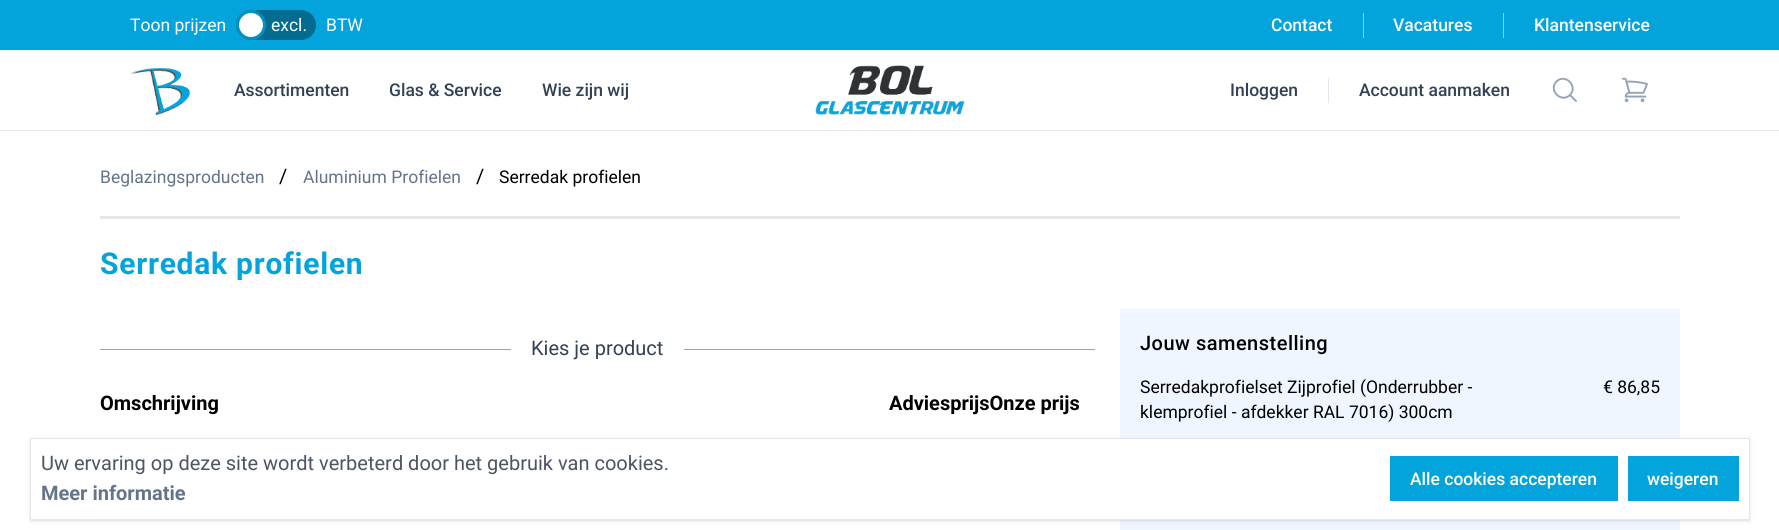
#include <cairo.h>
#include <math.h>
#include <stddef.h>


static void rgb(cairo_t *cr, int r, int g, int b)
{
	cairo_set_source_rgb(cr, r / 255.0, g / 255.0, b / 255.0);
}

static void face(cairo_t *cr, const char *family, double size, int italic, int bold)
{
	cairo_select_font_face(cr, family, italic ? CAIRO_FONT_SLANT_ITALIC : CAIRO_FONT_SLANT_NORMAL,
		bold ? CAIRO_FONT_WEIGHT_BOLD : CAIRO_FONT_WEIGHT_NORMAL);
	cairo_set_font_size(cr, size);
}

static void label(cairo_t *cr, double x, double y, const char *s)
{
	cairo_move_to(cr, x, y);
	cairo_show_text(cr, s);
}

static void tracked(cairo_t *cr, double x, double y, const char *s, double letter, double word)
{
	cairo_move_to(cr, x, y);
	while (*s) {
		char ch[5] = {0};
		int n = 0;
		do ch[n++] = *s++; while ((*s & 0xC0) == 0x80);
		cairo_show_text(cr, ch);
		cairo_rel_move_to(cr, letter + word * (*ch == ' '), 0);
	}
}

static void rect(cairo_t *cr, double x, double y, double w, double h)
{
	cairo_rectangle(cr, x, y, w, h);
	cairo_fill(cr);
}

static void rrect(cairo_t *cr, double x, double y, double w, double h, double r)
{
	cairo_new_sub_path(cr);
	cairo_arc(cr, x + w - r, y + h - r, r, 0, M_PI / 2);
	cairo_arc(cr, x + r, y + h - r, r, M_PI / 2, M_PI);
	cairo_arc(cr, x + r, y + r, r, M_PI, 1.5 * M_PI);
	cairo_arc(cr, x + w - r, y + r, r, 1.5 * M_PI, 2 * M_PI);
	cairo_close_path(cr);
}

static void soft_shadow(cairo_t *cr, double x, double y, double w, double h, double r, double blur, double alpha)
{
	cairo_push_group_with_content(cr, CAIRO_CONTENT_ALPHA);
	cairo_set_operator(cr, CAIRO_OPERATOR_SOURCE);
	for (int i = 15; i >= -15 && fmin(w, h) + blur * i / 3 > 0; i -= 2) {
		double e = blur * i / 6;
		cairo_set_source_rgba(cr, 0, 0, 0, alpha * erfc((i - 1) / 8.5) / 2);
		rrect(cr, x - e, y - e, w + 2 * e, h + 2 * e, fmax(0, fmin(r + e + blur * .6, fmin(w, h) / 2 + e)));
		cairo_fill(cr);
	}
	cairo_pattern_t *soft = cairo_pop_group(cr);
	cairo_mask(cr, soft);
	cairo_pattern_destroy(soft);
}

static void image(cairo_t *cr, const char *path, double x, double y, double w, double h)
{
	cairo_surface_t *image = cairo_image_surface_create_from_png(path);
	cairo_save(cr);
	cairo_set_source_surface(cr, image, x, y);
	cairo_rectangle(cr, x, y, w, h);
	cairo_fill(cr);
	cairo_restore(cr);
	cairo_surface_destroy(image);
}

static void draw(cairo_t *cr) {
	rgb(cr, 255, 255, 255);
	cairo_paint(cr);
	rgb(cr, 3, 163, 219);
	rect(cr, 0, 0, 1779, 50);
	face(cr, "Roboto", 17.5, 0, 0);
	rgb(cr, 255, 255, 255);
	label(cr, 130, 31, "Toon prijzen");
	rgb(cr, 2, 107, 143);
	rrect(cr, 236, 10, 80, 30, 15);
	cairo_fill(cr);
	rgb(cr, 255, 255, 255);
	cairo_arc(cr, 251, 25, 13.5, 0, 2 * M_PI);
	cairo_fill_preserve(cr);
	rgb(cr, 3, 144, 194);
	cairo_set_line_width(cr, 3);
	cairo_stroke(cr);
	rgb(cr, 255, 255, 255);
	label(cr, 271, 31, "excl.");
	label(cr, 326, 31, "BTW");
	face(cr, "Roboto Medium", 17.5, 0, 0);
	label(cr, 1271, 31, "Contact");
	rgb(cr, 129, 209, 237);
	rect(cr, 1363, 13, 1, 25);
	rgb(cr, 255, 255, 255);
	label(cr, 1393, 31, "Vacatures");
	rgb(cr, 129, 209, 237);
	rect(cr, 1503, 13, 1, 25);
	rgb(cr, 255, 255, 255);
	label(cr, 1534, 31, "Klantenservice");
	rgb(cr, 226, 232, 240);
	rect(cr, 0, 130, 1779, 1);
	image(cr, "image0.png", 130, 68, 61, 47);
	rgb(cr, 51, 65, 85);
	label(cr, 234, 96, "Assortimenten");
	label(cr, 389, 96, "Glas & Service");
	label(cr, 542, 96, "Wie zijn wij");
	image(cr, "image1.png", 815, 65, 150, 50);
	label(cr, 1230, 96, "Inloggen");
	rgb(cr, 226, 232, 240);
	rect(cr, 1328, 78, 1, 25);
	rgb(cr, 51, 65, 85);
	label(cr, 1359, 96, "Account aanmaken");
	cairo_new_path(cr);
	cairo_move_to(cr, 1576, 101);
	cairo_line_to(cr, 1570, 95);
	cairo_move_to(cr, 1570, 95);
	cairo_curve_to(cr, 1578.5, 86, 1565, 73, 1556.5, 81.5);
	cairo_curve_to(cr, 1548, 90, 1561, 103.5, 1570, 95);
	cairo_close_path(cr);
	rgb(cr, 148, 163, 184);
	cairo_set_line_width(cr, 1.9);
	cairo_set_line_cap(cr, CAIRO_LINE_CAP_ROUND);
	cairo_set_line_join(cr, CAIRO_LINE_JOIN_ROUND);
	cairo_stroke(cr);
	image(cr, "image2.png", 1621, 77, 27, 26);
	rgb(cr, 229, 231, 235);
	rect(cr, 100, 216, 1580, 3);
	face(cr, "Roboto", 17.5, 0, 0);
	rgb(cr, 100, 116, 139);
	label(cr, 100, 183, "Beglazingsproducten");
	face(cr, "Roboto", 20, 0, 0);
	rgb(cr, 0, 0, 0);
	label(cr, 279, 183, "/");
	face(cr, "Roboto", 17.5, 0, 0);
	rgb(cr, 100, 116, 139);
	label(cr, 303, 183, "Aluminium Profielen");
	face(cr, "Roboto", 20, 0, 0);
	rgb(cr, 0, 0, 0);
	label(cr, 476, 183, "/");
	face(cr, "Roboto", 17.5, 0, 0);
	label(cr, 499, 183, "Serredak profielen");
	face(cr, "Roboto", 30, 0, 1);
	rgb(cr, 3, 163, 219);
	tracked(cr, 100, 274, "Serredak profielen", 0.75, 0);
	rgb(cr, 156, 163, 175);
	rect(cr, 100, 349, 411, 1);
	face(cr, "Roboto", 20, 0, 0);
	rgb(cr, 51, 65, 85);
	label(cr, 531, 355, "Kies je product");
	rgb(cr, 156, 163, 175);
	rect(cr, 684, 349, 411, 1);
	face(cr, "Roboto", 20, 0, 1);
	rgb(cr, 0, 0, 0);
	label(cr, 100, 410, "Omschrijving");
	label(cr, 889, 410, "AdviesprijsOnze prijs");
	rgb(cr, 239, 246, 255);
	rect(cr, 1120, 309, 560, 221);
	face(cr, "Roboto Medium", 20, 0, 0);
	rgb(cr, 0, 0, 0);
	tracked(cr, 1140, 350, "Jouw samenstelling", 0.5, 0);
	face(cr, "Roboto", 17.5, 0, 0);
	label(cr, 1140, 393, "Serredakprofielset Zijprofiel (Onderrubber -");
	label(cr, 1140, 418, "klemprofiel - afdekker RAL 7016) 300cm");
	label(cr, 1603, 393, "€ 86,85");
	rgb(cr, 0, 0, 0);
	soft_shadow(cr, 31, 440, 1718, 80, 0, 1, 0.1);
	soft_shadow(cr, 30, 439, 1720, 82, 0, 2, 0.1);
	rgb(cr, 255, 255, 255);
	cairo_rectangle(cr, 30.5, 438.5, 1719, 81);
	cairo_fill_preserve(cr);
	rgb(cr, 229, 231, 235);
	cairo_set_line_width(cr, 1);
	cairo_set_line_cap(cr, CAIRO_LINE_CAP_BUTT);
	cairo_set_line_join(cr, CAIRO_LINE_JOIN_MITER);
	cairo_stroke(cr);
	face(cr, "Roboto", 20, 0, 0);
	rgb(cr, 75, 85, 99);
	label(cr, 41, 470, "Uw ervaring op deze site wordt verbeterd door het gebruik van cookies.");
	face(cr, "Roboto", 20, 0, 1);
	rgb(cr, 100, 116, 139);
	label(cr, 41, 500, "Meer informatie");
	rgb(cr, 3, 163, 219);
	rect(cr, 1390, 456, 228, 45);
	face(cr, "Roboto Medium", 17.5, 0, 0);
	rgb(cr, 255, 255, 255);
	label(cr, 1410, 485, "Alle cookies accepteren");
	rgb(cr, 3, 163, 219);
	rect(cr, 1628, 456, 111, 45);
	rgb(cr, 255, 255, 255);
	label(cr, 1647, 485, "weigeren");
}

int main(void) {
	cairo_surface_t *surface = cairo_image_surface_create(CAIRO_FORMAT_RGB24, 1779, 530);
	cairo_t *cr = cairo_create(surface);
	cairo_font_options_t *options = cairo_font_options_create();
	cairo_font_options_set_hint_metrics(options, CAIRO_HINT_METRICS_OFF);
	cairo_font_options_set_hint_style(options, CAIRO_HINT_STYLE_NONE);
	cairo_set_font_options(cr, options);
	cairo_set_miter_limit(cr, 4);
	draw(cr);
	cairo_surface_write_to_png(surface, "render.png");
	cairo_font_options_destroy(options);
	cairo_destroy(cr);
	cairo_surface_destroy(surface);
	return 0;
}
